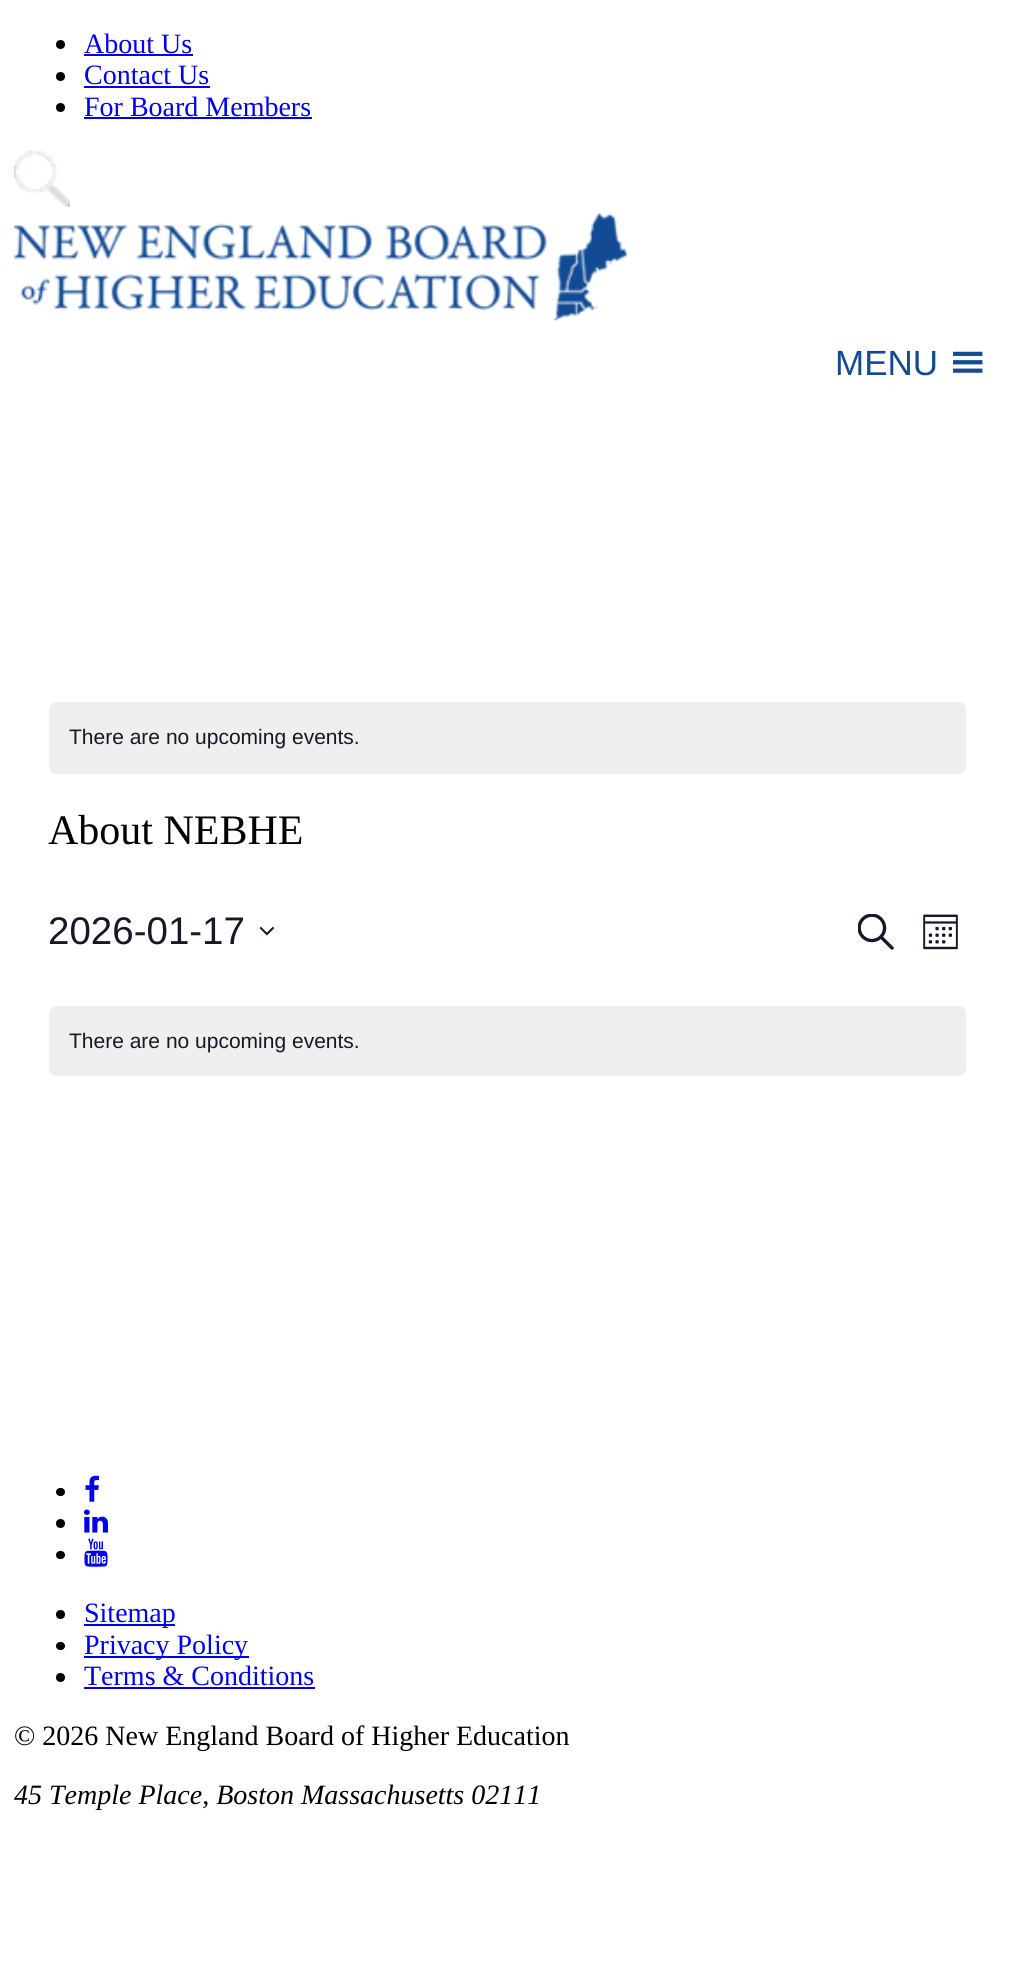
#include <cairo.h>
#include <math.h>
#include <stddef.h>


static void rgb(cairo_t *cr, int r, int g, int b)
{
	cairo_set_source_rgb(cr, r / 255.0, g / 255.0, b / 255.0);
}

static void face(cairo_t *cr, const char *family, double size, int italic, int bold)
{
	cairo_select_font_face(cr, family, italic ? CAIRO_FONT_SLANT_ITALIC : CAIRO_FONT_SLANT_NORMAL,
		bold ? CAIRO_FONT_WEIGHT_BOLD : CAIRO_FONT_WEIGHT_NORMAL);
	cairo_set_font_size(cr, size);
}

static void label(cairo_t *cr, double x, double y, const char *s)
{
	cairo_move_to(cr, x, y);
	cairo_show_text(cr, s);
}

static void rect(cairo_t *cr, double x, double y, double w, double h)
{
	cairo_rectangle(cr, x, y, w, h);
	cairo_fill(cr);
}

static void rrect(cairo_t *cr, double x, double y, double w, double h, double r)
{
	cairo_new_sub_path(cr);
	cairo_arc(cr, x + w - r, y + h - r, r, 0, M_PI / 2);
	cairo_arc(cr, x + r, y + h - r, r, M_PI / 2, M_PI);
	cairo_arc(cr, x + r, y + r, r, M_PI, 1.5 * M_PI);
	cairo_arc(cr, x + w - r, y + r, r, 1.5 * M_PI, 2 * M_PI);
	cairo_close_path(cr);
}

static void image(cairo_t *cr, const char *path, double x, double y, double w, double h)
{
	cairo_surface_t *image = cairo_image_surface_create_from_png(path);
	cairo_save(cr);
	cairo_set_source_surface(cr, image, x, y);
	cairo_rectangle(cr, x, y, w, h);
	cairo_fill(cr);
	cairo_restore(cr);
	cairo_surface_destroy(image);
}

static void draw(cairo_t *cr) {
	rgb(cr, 255, 255, 255);
	cairo_paint(cr);
	rgb(cr, 0, 0, 0);
	cairo_arc(cr, 60.5, 44.5, 4.5, 0, 2 * M_PI);
	cairo_fill(cr);
	face(cr, "Liberation Serif", 28, 0, 0);
	rgb(cr, 0, 0, 238);
	label(cr, 84, 53, "About Us");
	rect(cr, 84, 54, 109, 2);
	rgb(cr, 0, 0, 0);
	cairo_new_path(cr);
	cairo_arc(cr, 60.5, 76.5, 4.5, 0, 2 * M_PI);
	cairo_fill(cr);
	rgb(cr, 0, 0, 238);
	label(cr, 84, 84, "Contact Us");
	rect(cr, 84, 86, 126, 2);
	rgb(cr, 0, 0, 0);
	cairo_new_path(cr);
	cairo_arc(cr, 60.5, 107.5, 4.5, 0, 2 * M_PI);
	cairo_fill(cr);
	rgb(cr, 0, 0, 238);
	label(cr, 84, 116, "For Board Members");
	rect(cr, 84, 117, 228, 2);
	image(cr, "image0.png", 14, 150, 56, 57);
	image(cr, "image1.png", 14, 213, 613, 108);
	face(cr, "Liberation Sans", 35, 0, 0);
	rgb(cr, 18, 75, 148);
	label(cr, 835, 375, "MENU");
	image(cr, "image2.png", 953, 351, 30, 22);
	rgb(cr, 239, 239, 240);
	rrect(cr, 49, 702, 917, 72, 7);
	cairo_fill(cr);
	face(cr, "Liberation Sans", 21, 0, 0);
	rgb(cr, 20, 24, 39);
	label(cr, 69, 744, "There are no upcoming events.");
	face(cr, "Liberation Serif", 42, 0, 0);
	rgb(cr, 0, 0, 0);
	label(cr, 48, 844, "About NEBHE");
	face(cr, "Liberation Sans", 38.5, 0, 0);
	rgb(cr, 20, 24, 39);
	label(cr, 48, 944, "2026-01-17");
	image(cr, "image3.png", 259, 926, 16, 10);
	image(cr, "image4.png", 858, 914, 36, 36);
	image(cr, "image5.png", 923, 914, 35, 36);
	rgb(cr, 239, 239, 240);
	rrect(cr, 49, 1006, 917, 70, 7);
	cairo_fill(cr);
	face(cr, "Liberation Sans", 21, 0, 0);
	rgb(cr, 20, 24, 39);
	label(cr, 69, 1048, "There are no upcoming events.");
	rgb(cr, 0, 0, 0);
	rrect(cr, 56, 1488, 9, 8, 4);
	cairo_fill(cr);
	image(cr, "image6.png", 85, 1475, 14, 27);
	cairo_arc(cr, 60.5, 1523.5, 4.5, 0, 2 * M_PI);
	cairo_fill(cr);
	image(cr, "image7.png", 84, 1509, 24, 24);
	rrect(cr, 56, 1551, 9, 8, 4);
	cairo_fill(cr);
	image(cr, "image8.png", 84, 1538, 24, 29);
	cairo_arc(cr, 60.5, 1614.5, 4.5, 0, 2 * M_PI);
	cairo_fill(cr);
	rgb(cr, 0, 0, 238);
	rect(cr, 84, 1624, 91, 2);
	face(cr, "Liberation Serif", 28, 0, 0);
	label(cr, 84, 1622, "Sitemap");
	rgb(cr, 0, 0, 0);
	rrect(cr, 56, 1642, 9, 8, 4);
	cairo_fill(cr);
	rgb(cr, 0, 0, 238);
	rect(cr, 84, 1656, 165, 2);
	label(cr, 84, 1654, "Privacy Policy");
	rgb(cr, 0, 0, 0);
	cairo_new_path(cr);
	cairo_arc(cr, 60.5, 1677.5, 4.5, 0, 2 * M_PI);
	cairo_fill(cr);
	rgb(cr, 0, 0, 238);
	label(cr, 84, 1685, "Terms & Conditions");
	rect(cr, 84, 1687, 231, 2);
	rgb(cr, 0, 0, 0);
	label(cr, 14, 1745, "© 2026 New England Board of Higher Education");
	face(cr, "Liberation Serif", 28, 1, 0);
	label(cr, 14, 1804, "45 Temple Place, Boston Massachusetts 02111");
}

int main(void) {
	cairo_surface_t *surface = cairo_image_surface_create(CAIRO_FORMAT_RGB24, 1012, 1982);
	cairo_t *cr = cairo_create(surface);
	cairo_font_options_t *options = cairo_font_options_create();
	cairo_font_options_set_hint_metrics(options, CAIRO_HINT_METRICS_OFF);
	cairo_font_options_set_hint_style(options, CAIRO_HINT_STYLE_NONE);
	cairo_set_font_options(cr, options);
	cairo_set_miter_limit(cr, 4);
	draw(cr);
	cairo_surface_write_to_png(surface, "render.png");
	cairo_font_options_destroy(options);
	cairo_destroy(cr);
	cairo_surface_destroy(surface);
	return 0;
}
